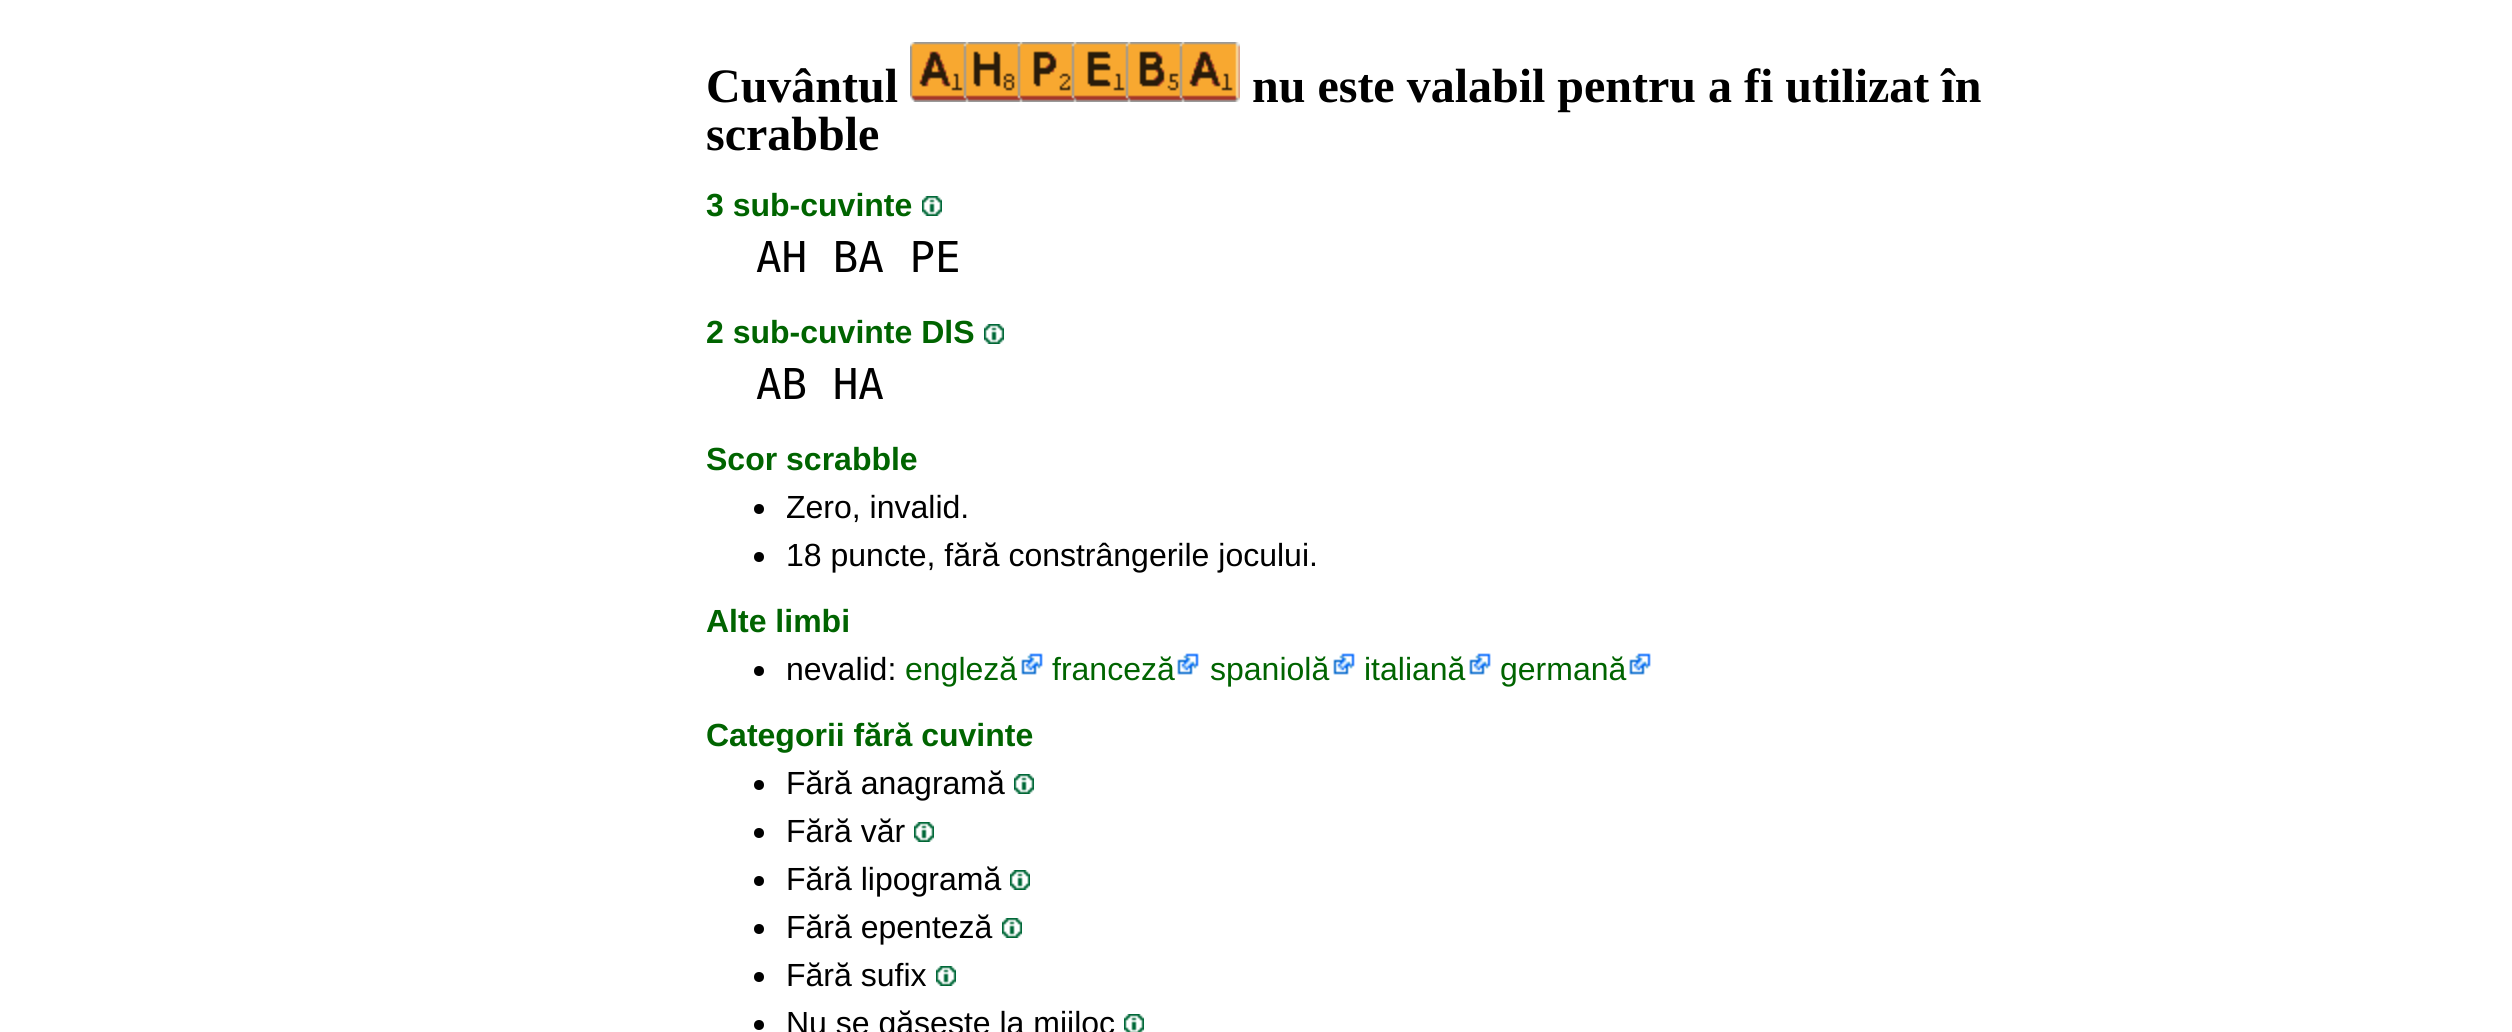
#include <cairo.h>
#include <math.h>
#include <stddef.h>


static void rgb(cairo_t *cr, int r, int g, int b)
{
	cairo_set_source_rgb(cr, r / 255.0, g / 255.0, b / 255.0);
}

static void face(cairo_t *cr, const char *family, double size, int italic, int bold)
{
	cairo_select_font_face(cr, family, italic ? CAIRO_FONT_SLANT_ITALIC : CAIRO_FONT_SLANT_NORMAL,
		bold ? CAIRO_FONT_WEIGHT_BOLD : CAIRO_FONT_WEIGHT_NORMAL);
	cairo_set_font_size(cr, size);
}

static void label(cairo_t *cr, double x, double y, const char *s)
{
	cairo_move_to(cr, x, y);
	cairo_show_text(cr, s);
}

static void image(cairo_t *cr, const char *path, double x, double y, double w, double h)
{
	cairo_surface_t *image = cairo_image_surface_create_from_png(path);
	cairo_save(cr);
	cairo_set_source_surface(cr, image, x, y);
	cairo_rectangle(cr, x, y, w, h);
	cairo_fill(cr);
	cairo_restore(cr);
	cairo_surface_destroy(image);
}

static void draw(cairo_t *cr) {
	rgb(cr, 255, 255, 255);
	cairo_paint(cr);
	face(cr, "Liberation Serif", 48, 0, 1);
	rgb(cr, 0, 0, 0);
	label(cr, 706, 102, "Cuvântul");
	image(cr, "image0.png", 910, 42, 330, 60);
	label(cr, 1252, 102, "nu este valabil pentru a fi utilizat în");
	label(cr, 706, 150, "scrabble");
	face(cr, "Liberation Sans", 32, 0, 1);
	rgb(cr, 0, 100, 0);
	label(cr, 706, 216, "3 sub-cuvinte");
	image(cr, "image1.png", 922, 196, 20, 20);
	face(cr, "DejaVu Sans Mono", 42.5, 0, 0);
	rgb(cr, 0, 0, 0);
	label(cr, 756, 272, "AH BA PE");
	face(cr, "Liberation Sans", 32, 0, 1);
	rgb(cr, 0, 100, 0);
	label(cr, 706, 343, "2 sub-cuvinte DlS");
	image(cr, "image1.png", 984, 324, 20, 20);
	face(cr, "DejaVu Sans Mono", 42.5, 0, 0);
	rgb(cr, 0, 0, 0);
	label(cr, 756, 399, "AB HA");
	face(cr, "Liberation Sans", 32, 0, 1);
	rgb(cr, 0, 100, 0);
	label(cr, 706, 470, "Scor scrabble");
	rgb(cr, 0, 0, 0);
	cairo_new_path(cr);
	cairo_arc(cr, 759, 509, 5, 0, 2 * M_PI);
	cairo_fill(cr);
	face(cr, "Liberation Sans", 32, 0, 0);
	label(cr, 786, 518, "Zero, invalid.");
	cairo_new_path(cr);
	cairo_arc(cr, 759, 557, 5, 0, 2 * M_PI);
	cairo_fill(cr);
	label(cr, 786, 566, "18 puncte, fără constrângerile jocului.");
	face(cr, "Liberation Sans", 32, 0, 1);
	rgb(cr, 0, 100, 0);
	label(cr, 706, 632, "Alte limbi");
	rgb(cr, 0, 0, 0);
	cairo_new_path(cr);
	cairo_arc(cr, 759, 671, 5, 0, 2 * M_PI);
	cairo_fill(cr);
	face(cr, "Liberation Sans", 32, 0, 0);
	label(cr, 786, 680, "nevalid:");
	rgb(cr, 0, 100, 0);
	label(cr, 905, 680, "engleză");
	image(cr, "image2.png", 1021, 653, 22, 22);
	label(cr, 1052, 680, "franceză");
	image(cr, "image2.png", 1177, 653, 22, 22);
	label(cr, 1210, 680, "spaniolă");
	image(cr, "image2.png", 1333, 653, 22, 22);
	label(cr, 1364, 680, "italiană");
	image(cr, "image2.png", 1469, 653, 22, 22);
	label(cr, 1500, 680, "germană");
	image(cr, "image2.png", 1629, 653, 22, 22);
	face(cr, "Liberation Sans", 32, 0, 1);
	label(cr, 706, 746, "Categorii fără cuvinte");
	rgb(cr, 0, 0, 0);
	cairo_new_path(cr);
	cairo_arc(cr, 759, 785, 5, 0, 2 * M_PI);
	cairo_fill(cr);
	face(cr, "Liberation Sans", 32, 0, 0);
	label(cr, 786, 794, "Fără anagramă");
	image(cr, "image1.png", 1014, 774, 20, 20);
	cairo_arc(cr, 759, 833, 5, 0, 2 * M_PI);
	cairo_fill(cr);
	label(cr, 786, 842, "Fără văr");
	image(cr, "image1.png", 914, 822, 20, 20);
	cairo_arc(cr, 759, 881, 5, 0, 2 * M_PI);
	cairo_fill(cr);
	label(cr, 786, 890, "Fără lipogramă");
	image(cr, "image1.png", 1010, 870, 20, 20);
	cairo_arc(cr, 759, 929, 5, 0, 2 * M_PI);
	cairo_fill(cr);
	label(cr, 786, 938, "Fără epenteză");
	image(cr, "image1.png", 1002, 918, 20, 20);
	cairo_arc(cr, 759, 977, 5, 0, 2 * M_PI);
	cairo_fill(cr);
	label(cr, 786, 986, "Fără sufix");
	image(cr, "image1.png", 936, 966, 20, 20);
	cairo_arc(cr, 759, 1025, 5, 0, 2 * M_PI);
	cairo_fill(cr);
	label(cr, 786, 1034, "Nu se găsește la mijloc");
	image(cr, "image3.png", 1124, 1014, 20, 18);
}

int main(void) {
	cairo_surface_t *surface = cairo_image_surface_create(CAIRO_FORMAT_RGB24, 2512, 1032);
	cairo_t *cr = cairo_create(surface);
	cairo_font_options_t *options = cairo_font_options_create();
	cairo_font_options_set_hint_metrics(options, CAIRO_HINT_METRICS_OFF);
	cairo_font_options_set_hint_style(options, CAIRO_HINT_STYLE_NONE);
	cairo_set_font_options(cr, options);
	cairo_set_miter_limit(cr, 4);
	draw(cr);
	cairo_surface_write_to_png(surface, "render.png");
	cairo_font_options_destroy(options);
	cairo_destroy(cr);
	cairo_surface_destroy(surface);
	return 0;
}
